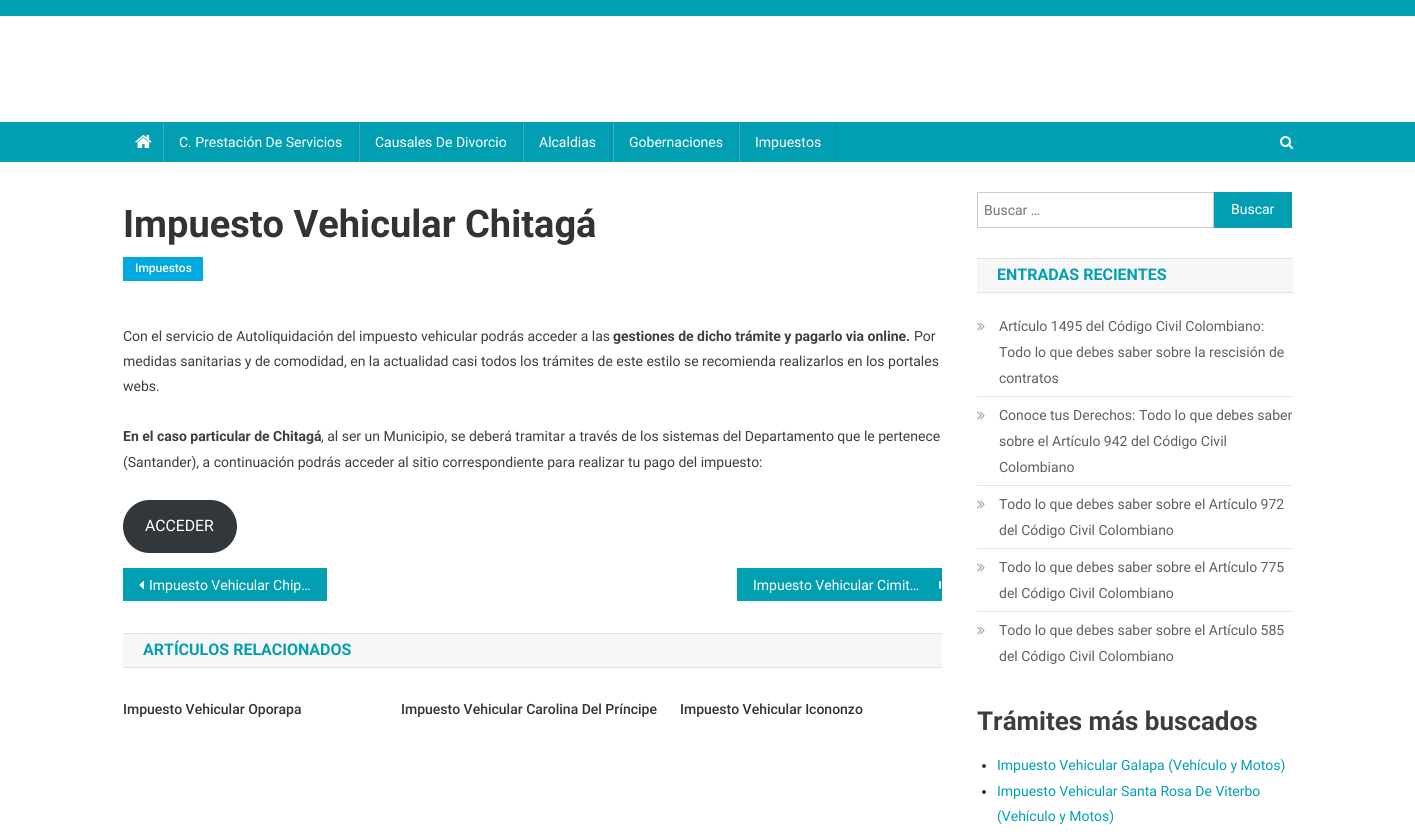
#include <cairo.h>
#include <math.h>
#include <stddef.h>


static void rgb(cairo_t *cr, int r, int g, int b)
{
	cairo_set_source_rgb(cr, r / 255.0, g / 255.0, b / 255.0);
}

static void face(cairo_t *cr, const char *family, double size, int italic, int bold)
{
	cairo_select_font_face(cr, family, italic ? CAIRO_FONT_SLANT_ITALIC : CAIRO_FONT_SLANT_NORMAL,
		bold ? CAIRO_FONT_WEIGHT_BOLD : CAIRO_FONT_WEIGHT_NORMAL);
	cairo_set_font_size(cr, size);
}

static void label(cairo_t *cr, double x, double y, const char *s)
{
	cairo_move_to(cr, x, y);
	cairo_show_text(cr, s);
}

static void rect(cairo_t *cr, double x, double y, double w, double h)
{
	cairo_rectangle(cr, x, y, w, h);
	cairo_fill(cr);
}

static void rrect(cairo_t *cr, double x, double y, double w, double h, double r)
{
	cairo_new_sub_path(cr);
	cairo_arc(cr, x + w - r, y + h - r, r, 0, M_PI / 2);
	cairo_arc(cr, x + r, y + h - r, r, M_PI / 2, M_PI);
	cairo_arc(cr, x + r, y + r, r, M_PI, 1.5 * M_PI);
	cairo_arc(cr, x + w - r, y + r, r, 1.5 * M_PI, 2 * M_PI);
	cairo_close_path(cr);
}

static void image(cairo_t *cr, const char *path, double x, double y, double w, double h)
{
	cairo_surface_t *image = cairo_image_surface_create_from_png(path);
	cairo_save(cr);
	cairo_set_source_surface(cr, image, x, y);
	cairo_rectangle(cr, x, y, w, h);
	cairo_fill(cr);
	cairo_restore(cr);
	cairo_surface_destroy(image);
}

static void draw(cairo_t *cr) {
	rgb(cr, 255, 255, 255);
	cairo_paint(cr);
	rgb(cr, 2, 159, 178);
	rect(cr, 0, 0, 1415, 16);
	rect(cr, 0, 122, 1415, 40);
	image(cr, "image0.png", 135, 135, 17, 13);
	rgb(cr, 2, 146, 164);
	rect(cr, 358, 122, 1, 40);
	rgb(cr, 53, 178, 193);
	rect(cr, 163, 122, 1, 40);
	face(cr, "Roboto", 14, 0, 0);
	rgb(cr, 255, 255, 255);
	label(cr, 179, 147, "C. Prestación De Servicios");
	rgb(cr, 2, 146, 164);
	rect(cr, 522, 122, 1, 40);
	rgb(cr, 53, 178, 193);
	rect(cr, 359, 122, 1, 40);
	rgb(cr, 255, 255, 255);
	label(cr, 375, 147, "Causales De Divorcio");
	rgb(cr, 2, 146, 164);
	rect(cr, 611, 122, 1, 40);
	rgb(cr, 53, 178, 193);
	rect(cr, 523, 122, 1, 40);
	rgb(cr, 255, 255, 255);
	label(cr, 539, 147, "Alcaldias");
	rgb(cr, 2, 146, 164);
	rect(cr, 738, 122, 1, 40);
	rgb(cr, 53, 178, 193);
	rect(cr, 613, 122, 1, 40);
	rgb(cr, 255, 255, 255);
	label(cr, 629, 147, "Gobernaciones");
	rgb(cr, 2, 146, 164);
	rect(cr, 836, 122, 1, 40);
	rgb(cr, 53, 178, 193);
	rect(cr, 739, 122, 1, 40);
	rgb(cr, 255, 255, 255);
	label(cr, 755, 147, "Impuestos");
	image(cr, "image1.png", 1280, 136, 13, 13);
	face(cr, "Roboto", 38, 0, 1);
	rgb(cr, 51, 51, 51);
	label(cr, 123, 237, "Impuesto Vehicular Chitagá");
	rgb(cr, 0, 169, 224);
	rect(cr, 123, 257, 80, 24);
	face(cr, "Roboto Medium", 12, 0, 0);
	rgb(cr, 255, 255, 255);
	label(cr, 135, 272, "Impuestos");
	face(cr, "Roboto", 14, 0, 0);
	rgb(cr, 61, 61, 61);
	label(cr, 123, 341, "Con el servicio de Autoliquidación del impuesto vehicular podrás acceder a las");
	face(cr, "Roboto", 14, 0, 1);
	label(cr, 613, 341, "gestiones de dicho trámite y pagarlo via online.");
	face(cr, "Roboto", 14, 0, 0);
	label(cr, 914, 341, "Por");
	label(cr, 123, 366, "medidas sanitarias y de comodidad, en la actualidad casi todos los trámites de este estilo se recomienda realizarlos en los portales");
	label(cr, 123, 391, "webs.");
	face(cr, "Roboto", 14, 0, 1);
	label(cr, 123, 441, "En el caso particular de Chitagá");
	face(cr, "Roboto", 14, 0, 0);
	label(cr, 321, 441, ", al ser un Municipio, se deberá tramitar a través de los sistemas del Departamento que le pertenece");
	label(cr, 123, 467, "(Santander), a continuación podrás acceder al sitio correspondiente para realizar tu pago del impuesto:");
	rgb(cr, 50, 55, 60);
	rrect(cr, 123, 500, 114, 53, 26.5);
	cairo_fill(cr);
	face(cr, "Roboto", 15.75, 0, 0);
	rgb(cr, 255, 255, 255);
	label(cr, 145, 531, "ACCEDER");
	rgb(cr, 2, 159, 178);
	rect(cr, 123, 568, 204, 33);
	image(cr, "image2.png", 139, 581, 5, 8);
	face(cr, "Roboto", 14, 0, 0);
	rgb(cr, 255, 255, 255);
	label(cr, 149, 590, "Impuesto Vehicular Chip…");
	rgb(cr, 2, 159, 178);
	rect(cr, 737, 568, 205, 33);
	rgb(cr, 255, 255, 255);
	label(cr, 753, 590, "Impuesto Vehicular Cimit…");
	image(cr, "image3.png", 939, 581, 2, 8);
	rgb(cr, 247, 247, 247);
	rect(cr, 123, 634, 819, 33);
	rgb(cr, 225, 225, 225);
	rect(cr, 123, 633, 819, 1);
	rect(cr, 123, 667, 819, 1);
	face(cr, "Roboto", 16, 0, 1);
	rgb(cr, 2, 159, 178);
	label(cr, 143, 655, "ARTÍCULOS RELACIONADOS");
	face(cr, "Roboto Medium", 14, 0, 0);
	rgb(cr, 51, 51, 51);
	label(cr, 123, 714, "Impuesto Vehicular Oporapa");
	label(cr, 401, 714, "Impuesto Vehicular Carolina Del Príncipe");
	label(cr, 680, 714, "Impuesto Vehicular Icononzo");
	cairo_rectangle(cr, 977.5, 192.5, 236, 35);
	rgb(cr, 204, 204, 204);
	cairo_set_line_width(cr, 1);
	cairo_stroke(cr);
	face(cr, "Roboto", 14, 0, 0);
	rgb(cr, 117, 117, 117);
	label(cr, 984, 215, "Buscar …");
	rgb(cr, 2, 159, 178);
	rect(cr, 1214, 192, 78, 36);
	rgb(cr, 255, 255, 255);
	label(cr, 1231, 214, "Buscar");
	rgb(cr, 247, 247, 247);
	rect(cr, 977, 259, 316, 33);
	rgb(cr, 225, 225, 225);
	rect(cr, 977, 258, 316, 1);
	rect(cr, 977, 292, 316, 1);
	face(cr, "Roboto", 16, 0, 1);
	rgb(cr, 2, 159, 178);
	label(cr, 997, 280, "ENTRADAS RECIENTES");
	rgb(cr, 230, 230, 230);
	rect(cr, 977, 396, 316, 1);
	image(cr, "image4.png", 977, 322, 8, 9);
	face(cr, "Roboto", 14, 0, 0);
	rgb(cr, 95, 95, 95);
	label(cr, 999, 331, "Artículo 1495 del Código Civil Colombiano:");
	label(cr, 999, 357, "Todo lo que debes saber sobre la rescisión de");
	label(cr, 999, 383, "contratos");
	rgb(cr, 230, 230, 230);
	rect(cr, 977, 485, 316, 1);
	image(cr, "image4.png", 977, 411, 8, 9);
	rgb(cr, 95, 95, 95);
	label(cr, 999, 420, "Conoce tus Derechos: Todo lo que debes saber");
	label(cr, 999, 446, "sobre el Artículo 942 del Código Civil");
	label(cr, 999, 472, "Colombiano");
	rgb(cr, 230, 230, 230);
	rect(cr, 977, 548, 316, 1);
	image(cr, "image4.png", 977, 500, 8, 9);
	rgb(cr, 95, 95, 95);
	label(cr, 999, 509, "Todo lo que debes saber sobre el Artículo 972");
	label(cr, 999, 535, "del Código Civil Colombiano");
	rgb(cr, 230, 230, 230);
	rect(cr, 977, 611, 316, 1);
	image(cr, "image4.png", 977, 563, 8, 9);
	rgb(cr, 95, 95, 95);
	label(cr, 999, 572, "Todo lo que debes saber sobre el Artículo 775");
	label(cr, 999, 598, "del Código Civil Colombiano");
	image(cr, "image4.png", 977, 626, 8, 9);
	label(cr, 999, 635, "Todo lo que debes saber sobre el Artículo 585");
	label(cr, 999, 661, "del Código Civil Colombiano");
	face(cr, "Roboto", 26, 0, 1);
	rgb(cr, 61, 61, 61);
	label(cr, 977, 730, "Trámites más buscados");
	cairo_new_path(cr);
	cairo_arc(cr, 984, 766, 2, 0, 2 * M_PI);
	cairo_fill(cr);
	face(cr, "Roboto", 14, 0, 0);
	rgb(cr, 2, 159, 178);
	label(cr, 997, 770, "Impuesto Vehicular Galapa (Vehículo y Motos)");
	rgb(cr, 61, 61, 61);
	cairo_new_path(cr);
	cairo_arc(cr, 984, 792, 2, 0, 2 * M_PI);
	cairo_fill(cr);
	rgb(cr, 2, 159, 178);
	label(cr, 997, 796, "Impuesto Vehicular Santa Rosa De Viterbo");
	label(cr, 997, 821, "(Vehículo y Motos)");
}

int main(void) {
	cairo_surface_t *surface = cairo_image_surface_create(CAIRO_FORMAT_RGB24, 1415, 839);
	cairo_t *cr = cairo_create(surface);
	cairo_font_options_t *options = cairo_font_options_create();
	cairo_font_options_set_hint_metrics(options, CAIRO_HINT_METRICS_OFF);
	cairo_font_options_set_hint_style(options, CAIRO_HINT_STYLE_NONE);
	cairo_set_font_options(cr, options);
	cairo_set_miter_limit(cr, 4);
	draw(cr);
	cairo_surface_write_to_png(surface, "render.png");
	cairo_font_options_destroy(options);
	cairo_destroy(cr);
	cairo_surface_destroy(surface);
	return 0;
}
